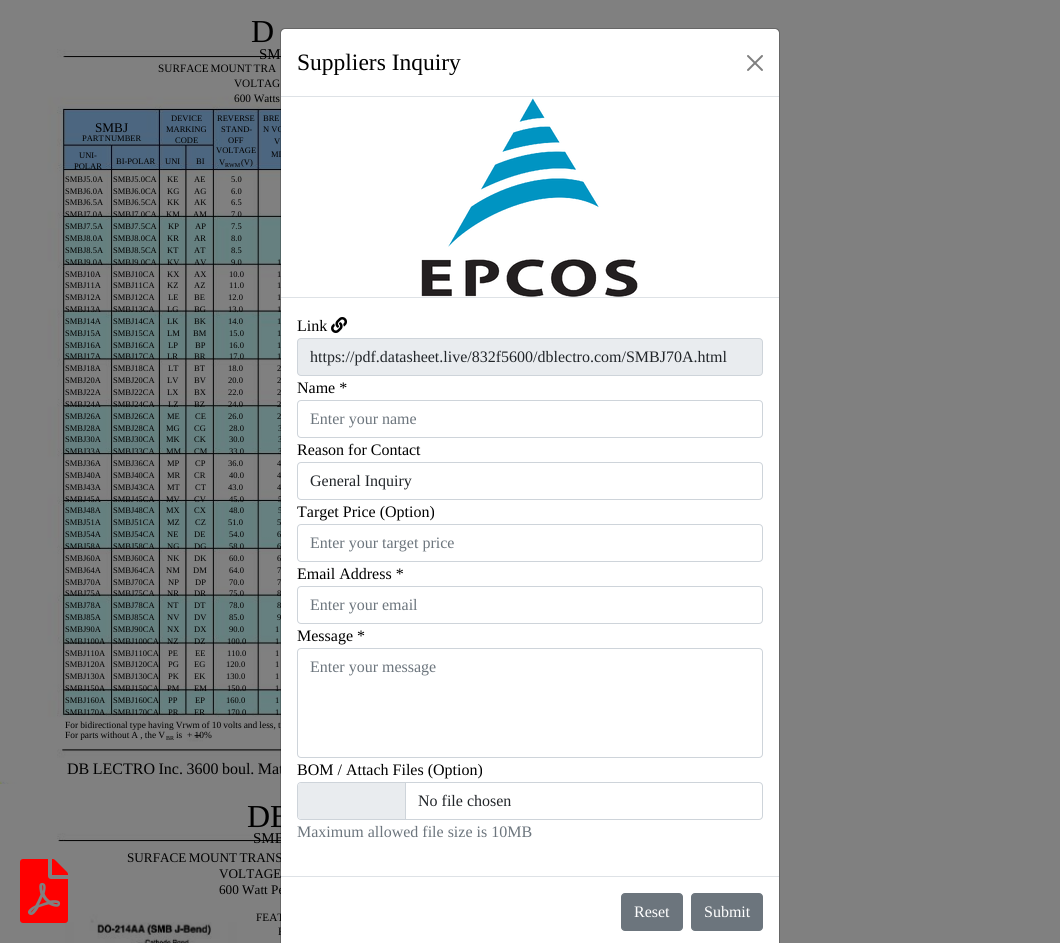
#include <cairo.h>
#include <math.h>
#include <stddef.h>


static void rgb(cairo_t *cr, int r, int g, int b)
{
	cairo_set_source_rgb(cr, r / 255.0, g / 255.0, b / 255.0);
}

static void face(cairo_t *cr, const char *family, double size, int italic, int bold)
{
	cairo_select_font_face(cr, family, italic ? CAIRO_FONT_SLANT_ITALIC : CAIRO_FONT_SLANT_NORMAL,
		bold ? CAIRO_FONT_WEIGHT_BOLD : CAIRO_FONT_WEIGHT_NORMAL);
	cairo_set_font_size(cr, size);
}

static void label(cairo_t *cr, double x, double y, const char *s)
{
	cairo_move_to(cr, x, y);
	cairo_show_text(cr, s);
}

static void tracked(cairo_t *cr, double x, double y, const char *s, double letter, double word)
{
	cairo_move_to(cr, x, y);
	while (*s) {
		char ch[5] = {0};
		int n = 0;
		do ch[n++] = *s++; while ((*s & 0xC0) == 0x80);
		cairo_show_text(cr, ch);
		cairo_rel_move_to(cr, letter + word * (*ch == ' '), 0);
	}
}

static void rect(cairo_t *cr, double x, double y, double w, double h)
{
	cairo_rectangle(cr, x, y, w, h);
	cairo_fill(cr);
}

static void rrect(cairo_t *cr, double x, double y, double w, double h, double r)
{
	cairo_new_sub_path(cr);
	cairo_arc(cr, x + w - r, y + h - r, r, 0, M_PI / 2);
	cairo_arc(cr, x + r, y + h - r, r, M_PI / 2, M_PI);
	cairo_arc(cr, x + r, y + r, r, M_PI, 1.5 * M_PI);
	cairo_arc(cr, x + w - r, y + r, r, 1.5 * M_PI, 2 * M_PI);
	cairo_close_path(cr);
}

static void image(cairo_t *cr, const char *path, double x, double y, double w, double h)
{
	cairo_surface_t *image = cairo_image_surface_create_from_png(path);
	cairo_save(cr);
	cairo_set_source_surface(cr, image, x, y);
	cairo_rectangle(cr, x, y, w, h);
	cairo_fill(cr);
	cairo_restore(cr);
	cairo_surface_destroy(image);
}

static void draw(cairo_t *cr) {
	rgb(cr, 128, 128, 128);
	cairo_paint(cr);
	image(cr, "image2.png", 57, 833, 224, 110);
	image(cr, "image0.png", 20, 859, 48, 64);
	face(cr, "Liberation Serif", 32, 0, 0);
	rgb(cr, 0, 0, 0);
	tracked(cr, 251, 42, "D", 0, -1);
	image(cr, "image1.png", 0, 49, 281, 735);
	face(cr, "Liberation Serif", 15, 0, 0);
	tracked(cr, 259, 59, "SM", 0, -1);
	face(cr, "Liberation Serif", 11.25, 0, 0);
	tracked(cr, 158, 72, "SURFACE MOUNT TRA", 0, -1);
	label(cr, 234, 87, "VOLTAG");
	label(cr, 234, 102, "600 Watts");
	face(cr, "Liberation Serif", 8.5, 0, 0);
	label(cr, 171, 121, "DEVICE");
	label(cr, 217, 121, "REVERSE");
	label(cr, 263, 121, "BRE");
	face(cr, "Liberation Serif", 13.2, 0, 0);
	label(cr, 95, 132, "SMBJ");
	face(cr, "Liberation Serif", 8.5, 0, 0);
	label(cr, 166, 132, "MARKING");
	label(cr, 221, 132, "STAND-");
	label(cr, 263, 132, "N VO");
	tracked(cr, 82, 141, "PART NUMBER", 0, -1);
	label(cr, 175, 143, "CODE");
	label(cr, 228, 143, "OFF");
	label(cr, 274, 144, "V");
	label(cr, 79, 158, "UNI-");
	label(cr, 216, 153, "VOLTAGE");
	label(cr, 271, 157, "MI");
	label(cr, 116, 164, "BI-POLAR");
	label(cr, 165, 164, "UNI");
	label(cr, 196, 164, "BI");
	label(cr, 74, 169, "POLAR");
	label(cr, 219, 165, "V");
	face(cr, "Liberation Serif", 6, 0, 0);
	label(cr, 225, 167, "RWM");
	face(cr, "Liberation Serif", 8.5, 0, 0);
	label(cr, 241, 165, "(V)");
	label(cr, 65, 182, "SMBJ5.0A");
	label(cr, 113, 182, "SMBJ5.0CA");
	label(cr, 167, 182, "KE");
	label(cr, 194, 182, "AE");
	label(cr, 231, 182, "5.0");
	label(cr, 65, 194, "SMBJ6.0A");
	label(cr, 113, 194, "SMBJ6.0CA");
	label(cr, 167, 194, "KG");
	label(cr, 194, 194, "AG");
	label(cr, 231, 194, "6.0");
	label(cr, 65, 205, "SMBJ6.5A");
	label(cr, 113, 205, "SMBJ6.5CA");
	label(cr, 167, 205, "KK");
	label(cr, 194, 205, "AK");
	label(cr, 231, 205, "6.5");
	label(cr, 65, 217, "SMBJ7.0A");
	label(cr, 113, 217, "SMBJ7.0CA");
	label(cr, 166, 217, "KM");
	label(cr, 193, 217, "AM");
	label(cr, 231, 217, "7.0");
	label(cr, 65, 229, "SMBJ7.5A");
	label(cr, 113, 229, "SMBJ7.5CA");
	label(cr, 168, 229, "KP");
	label(cr, 195, 229, "AP");
	label(cr, 231, 229, "7.5");
	label(cr, 65, 241, "SMBJ8.0A");
	label(cr, 113, 241, "SMBJ8.0CA");
	label(cr, 167, 241, "KR");
	label(cr, 194, 241, "AR");
	label(cr, 231, 241, "8.0");
	label(cr, 65, 253, "SMBJ8.5A");
	label(cr, 113, 253, "SMBJ8.5CA");
	label(cr, 167, 253, "KT");
	label(cr, 194, 253, "AT");
	label(cr, 231, 253, "8.5");
	label(cr, 65, 265, "SMBJ9.0A");
	label(cr, 113, 265, "SMBJ9.0CA");
	label(cr, 167, 265, "KV");
	label(cr, 194, 265, "AV");
	label(cr, 231, 265, "9.0");
	label(cr, 277, 265, "1");
	label(cr, 65, 277, "SMBJ10A");
	label(cr, 113, 277, "SMBJ10CA");
	label(cr, 167, 277, "KX");
	label(cr, 194, 277, "AX");
	label(cr, 229, 277, "10.0");
	label(cr, 277, 277, "1");
	label(cr, 65, 288, "SMBJ11A");
	label(cr, 113, 288, "SMBJ11CA");
	label(cr, 167, 288, "KZ");
	label(cr, 194, 288, "AZ");
	label(cr, 229, 288, "11.0");
	label(cr, 277, 288, "1");
	label(cr, 65, 300, "SMBJ12A");
	label(cr, 113, 300, "SMBJ12CA");
	label(cr, 168, 300, "LE");
	label(cr, 194, 300, "BE");
	label(cr, 228, 300, "12.0");
	label(cr, 277, 300, "1");
	label(cr, 65, 312, "SMBJ13A");
	label(cr, 113, 312, "SMBJ13CA");
	label(cr, 167, 312, "LG");
	label(cr, 194, 312, "BG");
	label(cr, 228, 312, "13.0");
	label(cr, 277, 312, "1");
	label(cr, 65, 324, "SMBJ14A");
	label(cr, 113, 324, "SMBJ14CA");
	label(cr, 167, 324, "LK");
	label(cr, 194, 324, "BK");
	label(cr, 228, 324, "14.0");
	label(cr, 277, 324, "1");
	label(cr, 65, 336, "SMBJ15A");
	label(cr, 113, 336, "SMBJ15CA");
	label(cr, 167, 336, "LM");
	label(cr, 193, 336, "BM");
	label(cr, 229, 336, "15.0");
	label(cr, 277, 336, "1");
	label(cr, 65, 348, "SMBJ16A");
	label(cr, 113, 348, "SMBJ16CA");
	label(cr, 168, 348, "LP");
	label(cr, 195, 348, "BP");
	label(cr, 229, 348, "16.0");
	label(cr, 277, 348, "1");
	label(cr, 65, 359, "SMBJ17A");
	label(cr, 113, 359, "SMBJ17CA");
	label(cr, 167, 359, "LR");
	label(cr, 194, 359, "BR");
	label(cr, 229, 359, "17.0");
	label(cr, 277, 359, "1");
	label(cr, 65, 371, "SMBJ18A");
	label(cr, 113, 371, "SMBJ18CA");
	label(cr, 168, 371, "LT");
	label(cr, 194, 371, "BT");
	label(cr, 228, 371, "18.0");
	label(cr, 277, 371, "2");
	label(cr, 65, 383, "SMBJ20A");
	label(cr, 113, 383, "SMBJ20CA");
	label(cr, 167, 383, "LV");
	label(cr, 194, 383, "BV");
	label(cr, 228, 383, "20.0");
	label(cr, 277, 383, "2");
	label(cr, 65, 395, "SMBJ22A");
	label(cr, 113, 395, "SMBJ22CA");
	label(cr, 167, 395, "LX");
	label(cr, 194, 395, "BX");
	label(cr, 228, 395, "22.0");
	label(cr, 277, 395, "2");
	label(cr, 65, 407, "SMBJ24A");
	label(cr, 113, 407, "SMBJ24CA");
	label(cr, 168, 407, "LZ");
	label(cr, 194, 407, "BZ");
	label(cr, 228, 407, "24.0");
	label(cr, 277, 407, "2");
	label(cr, 65, 419, "SMBJ26A");
	label(cr, 113, 419, "SMBJ26CA");
	label(cr, 167, 419, "ME");
	label(cr, 195, 419, "CE");
	label(cr, 228, 419, "26.0");
	label(cr, 277, 419, "2");
	label(cr, 65, 431, "SMBJ28A");
	label(cr, 113, 431, "SMBJ28CA");
	label(cr, 166, 431, "MG");
	label(cr, 194, 431, "CG");
	label(cr, 229, 431, "28.0");
	label(cr, 278, 431, "3");
	label(cr, 65, 442, "SMBJ30A");
	label(cr, 113, 442, "SMBJ30CA");
	label(cr, 166, 442, "MK");
	label(cr, 194, 442, "CK");
	label(cr, 229, 442, "30.0");
	label(cr, 278, 442, "3");
	label(cr, 65, 454, "SMBJ33A");
	label(cr, 113, 454, "SMBJ33CA");
	label(cr, 166, 454, "MM");
	label(cr, 194, 454, "CM");
	label(cr, 229, 454, "33.0");
	label(cr, 278, 454, "3");
	label(cr, 65, 466, "SMBJ36A");
	label(cr, 113, 466, "SMBJ36CA");
	label(cr, 167, 466, "MP");
	label(cr, 195, 466, "CP");
	label(cr, 228, 466, "36.0");
	label(cr, 277, 466, "4");
	label(cr, 65, 478, "SMBJ40A");
	label(cr, 113, 478, "SMBJ40CA");
	label(cr, 167, 478, "MR");
	label(cr, 194, 478, "CR");
	label(cr, 229, 478, "40.0");
	label(cr, 277, 478, "4");
	label(cr, 65, 490, "SMBJ43A");
	label(cr, 113, 490, "SMBJ43CA");
	label(cr, 167, 490, "MT");
	label(cr, 195, 490, "CT");
	label(cr, 228, 490, "43.0");
	label(cr, 277, 490, "4");
	label(cr, 65, 502, "SMBJ45A");
	label(cr, 113, 502, "SMBJ45CA");
	label(cr, 166, 502, "MV");
	label(cr, 194, 502, "CV");
	label(cr, 229, 502, "45.0");
	label(cr, 278, 502, "5");
	label(cr, 65, 513, "SMBJ48A");
	label(cr, 113, 513, "SMBJ48CA");
	label(cr, 166, 513, "MX");
	label(cr, 194, 513, "CX");
	label(cr, 229, 513, "48.0");
	label(cr, 278, 513, "5");
	label(cr, 65, 525, "SMBJ51A");
	label(cr, 113, 525, "SMBJ51CA");
	label(cr, 167, 525, "MZ");
	label(cr, 195, 525, "CZ");
	label(cr, 228, 525, "51.0");
	label(cr, 277, 525, "5");
	label(cr, 65, 537, "SMBJ54A");
	label(cr, 113, 537, "SMBJ54CA");
	label(cr, 167, 537, "NE");
	label(cr, 194, 537, "DE");
	label(cr, 229, 537, "54.0");
	label(cr, 277, 537, "6");
	label(cr, 65, 549, "SMBJ58A");
	label(cr, 113, 549, "SMBJ58CA");
	label(cr, 167, 549, "NG");
	label(cr, 194, 549, "DG");
	label(cr, 229, 549, "58.0");
	label(cr, 277, 549, "6");
	label(cr, 65, 561, "SMBJ60A");
	label(cr, 113, 561, "SMBJ60CA");
	label(cr, 167, 561, "NK");
	label(cr, 194, 561, "DK");
	label(cr, 229, 561, "60.0");
	label(cr, 277, 561, "6");
	label(cr, 65, 573, "SMBJ64A");
	label(cr, 113, 573, "SMBJ64CA");
	label(cr, 166, 573, "NM");
	label(cr, 193, 573, "DM");
	label(cr, 229, 573, "64.0");
	label(cr, 277, 573, "7");
	label(cr, 65, 585, "SMBJ70A");
	label(cr, 113, 585, "SMBJ70CA");
	label(cr, 168, 585, "NP");
	label(cr, 195, 585, "DP");
	label(cr, 229, 585, "70.0");
	label(cr, 277, 585, "7");
	label(cr, 65, 596, "SMBJ75A");
	label(cr, 113, 596, "SMBJ75CA");
	label(cr, 167, 596, "NR");
	label(cr, 194, 596, "DR");
	label(cr, 229, 596, "75.0");
	label(cr, 277, 596, "8");
	label(cr, 65, 608, "SMBJ78A");
	label(cr, 113, 608, "SMBJ78CA");
	label(cr, 167, 608, "NT");
	label(cr, 194, 608, "DT");
	label(cr, 229, 608, "78.0");
	label(cr, 277, 608, "8");
	label(cr, 65, 620, "SMBJ85A");
	label(cr, 113, 620, "SMBJ85CA");
	label(cr, 167, 620, "NV");
	label(cr, 194, 620, "DV");
	label(cr, 229, 620, "85.0");
	label(cr, 277, 620, "9");
	label(cr, 65, 632, "SMBJ90A");
	label(cr, 113, 632, "SMBJ90CA");
	label(cr, 167, 632, "NX");
	label(cr, 194, 632, "DX");
	label(cr, 229, 632, "90.0");
	label(cr, 275, 632, "1");
	label(cr, 65, 644, "SMBJ100A");
	label(cr, 113, 644, "SMBJ100CA");
	label(cr, 167, 644, "NZ");
	label(cr, 194, 644, "DZ");
	label(cr, 227, 644, "100.0");
	label(cr, 275, 644, "1");
	label(cr, 65, 656, "SMBJ110A");
	label(cr, 113, 656, "SMBJ110CA");
	label(cr, 168, 656, "PE");
	label(cr, 195, 656, "EE");
	label(cr, 227, 656, "110.0");
	label(cr, 275, 656, "1");
	label(cr, 65, 667, "SMBJ120A");
	label(cr, 113, 667, "SMBJ120CA");
	label(cr, 168, 667, "PG");
	label(cr, 194, 667, "EG");
	label(cr, 226, 667, "120.0");
	label(cr, 275, 667, "1");
	label(cr, 65, 679, "SMBJ130A");
	label(cr, 113, 679, "SMBJ130CA");
	label(cr, 168, 679, "PK");
	label(cr, 194, 679, "EK");
	label(cr, 226, 679, "130.0");
	label(cr, 275, 679, "1");
	label(cr, 65, 691, "SMBJ150A");
	label(cr, 113, 691, "SMBJ150CA");
	label(cr, 167, 691, "PM");
	label(cr, 194, 691, "EM");
	label(cr, 227, 691, "150.0");
	label(cr, 275, 691, "1");
	label(cr, 65, 703, "SMBJ160A");
	label(cr, 113, 703, "SMBJ160CA");
	label(cr, 168, 703, "PP");
	label(cr, 195, 703, "EP");
	label(cr, 226, 703, "160.0");
	label(cr, 275, 703, "1");
	label(cr, 65, 715, "SMBJ170A");
	label(cr, 113, 715, "SMBJ170CA");
	label(cr, 168, 715, "PR");
	label(cr, 194, 715, "ER");
	label(cr, 227, 715, "170.0");
	label(cr, 275, 715, "1");
	face(cr, "Liberation Serif", 9.4, 0, 0);
	tracked(cr, 65, 728, "For bidirectional type having Vrwm of 10 volts and less, t", 0, -0.25);
	tracked(cr, 65, 738, "For parts without A , the V", 0, -0.25);
	face(cr, "Liberation Serif", 6, 0, 0);
	label(cr, 166, 740, "BR");
	face(cr, "Liberation Serif", 9.4, 0, 0);
	label(cr, 176, 738, "is  + 10%");
	face(cr, "Liberation Serif", 16, 0, 0);
	tracked(cr, 67, 774, "DB LECTRO Inc. 3600 boul. Mat", 0, -0.5);
	face(cr, "Liberation Serif", 32, 0, 0);
	tracked(cr, 247, 827, "DB", 0, -1);
	face(cr, "Liberation Serif", 15, 0, 0);
	tracked(cr, 253, 843, "SMB", 0, -1);
	face(cr, "Liberation Serif", 13.2, 0, 0);
	tracked(cr, 127, 862, "SURFACE MOUNT TRANS", 0, -1);
	tracked(cr, 219, 878, "VOLTAGE", 0, -1);
	label(cr, 219, 894, "600 Watt Pe");
	face(cr, "Liberation Serif", 11.25, 0, 0);
	label(cr, 256, 921, "FEAT");
	label(cr, 278, 935, "F");
	rgb(cr, 255, 255, 255);
	cairo_new_path(cr);
	cairo_move_to(cr, 285, 29);
	cairo_line_to(cr, 775, 29);
	cairo_curve_to(cr, 777, 29, 779, 31, 779, 33);
	cairo_line_to(cr, 779, 943);
	cairo_line_to(cr, 281, 943);
	cairo_line_to(cr, 281, 33);
	cairo_curve_to(cr, 281, 31, 283, 29, 285, 29);
	cairo_close_path(cr);
	cairo_fill(cr);
	rrect(cr, 280.5, 28.5, 499, 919, 4.5);
	cairo_set_source_rgba(cr, 0, 0, 0, 0.2);
	cairo_set_line_width(cr, 1);
	cairo_stroke(cr);
	rgb(cr, 222, 226, 230);
	rect(cr, 281, 96, 498, 1);
	face(cr, "Liberation Serif", 23.5, 0, 0);
	rgb(cr, 0, 0, 0);
	label(cr, 297, 70, "Suppliers Inquiry");
	image(cr, "image3.png", 747, 55, 16, 16);
	rgb(cr, 222, 226, 230);
	rect(cr, 281, 297, 498, 1);
	image(cr, "image4.png", 421, 98, 217, 199);
	face(cr, "Liberation Serif", 16, 0, 0);
	rgb(cr, 0, 0, 0);
	label(cr, 297, 331, "Link");
	image(cr, "image5.png", 331, 317, 16, 16);
	rgb(cr, 233, 236, 239);
	rrect(cr, 297.5, 338.5, 465, 37, 3.5);
	cairo_fill_preserve(cr);
	rgb(cr, 206, 212, 218);
	cairo_stroke(cr);
	rgb(cr, 33, 37, 41);
	label(cr, 310, 362, "https://pdf.datasheet.live/832f5600/dblectro.com/SMBJ70A.html");
	rgb(cr, 0, 0, 0);
	label(cr, 297, 393, "Name *");
	rrect(cr, 297.5, 400.5, 465, 37, 3.5);
	rgb(cr, 206, 212, 218);
	cairo_stroke(cr);
	rgb(cr, 108, 117, 125);
	label(cr, 310, 424, "Enter your name");
	rgb(cr, 0, 0, 0);
	label(cr, 297, 455, "Reason for Contact");
	rrect(cr, 297.5, 462.5, 465, 37, 3.5);
	rgb(cr, 206, 212, 218);
	cairo_stroke(cr);
	rgb(cr, 33, 37, 41);
	label(cr, 310, 486, "General Inquiry");
	rgb(cr, 0, 0, 0);
	label(cr, 297, 517, "Target Price (Option)");
	rrect(cr, 297.5, 524.5, 465, 37, 3.5);
	rgb(cr, 206, 212, 218);
	cairo_stroke(cr);
	rgb(cr, 108, 117, 125);
	label(cr, 310, 548, "Enter your target price");
	rgb(cr, 0, 0, 0);
	label(cr, 297, 579, "Email Address *");
	rrect(cr, 297.5, 586.5, 465, 37, 3.5);
	rgb(cr, 206, 212, 218);
	cairo_stroke(cr);
	rgb(cr, 108, 117, 125);
	label(cr, 310, 610, "Enter your email");
	rgb(cr, 0, 0, 0);
	label(cr, 297, 641, "Message *");
	rrect(cr, 297.5, 648.5, 465, 109, 3.5);
	rgb(cr, 206, 212, 218);
	cairo_stroke(cr);
	rgb(cr, 108, 117, 125);
	label(cr, 310, 672, "Enter your message");
	rgb(cr, 0, 0, 0);
	label(cr, 297, 775, "BOM / Attach Files (Option)");
	rrect(cr, 297.5, 782.5, 465, 37, 3.5);
	rgb(cr, 206, 212, 218);
	cairo_stroke(cr);
	rgb(cr, 233, 236, 239);
	cairo_new_path(cr);
	cairo_move_to(cr, 301, 783);
	cairo_line_to(cr, 405, 783);
	cairo_line_to(cr, 405, 819);
	cairo_line_to(cr, 301, 819);
	cairo_curve_to(cr, 299.5, 819, 298, 817.5, 298, 816);
	cairo_line_to(cr, 298, 786);
	cairo_curve_to(cr, 298, 784.5, 299.5, 783, 301, 783);
	cairo_close_path(cr);
	cairo_fill(cr);
	rgb(cr, 206, 212, 218);
	rect(cr, 405, 783, 1, 36);
	rgb(cr, 33, 37, 41);
	label(cr, 418, 806, "No file chosen");
	rgb(cr, 108, 117, 125);
	label(cr, 297, 837, "Maximum allowed file size is 10MB");
	rgb(cr, 222, 226, 230);
	rect(cr, 281, 876, 498, 1);
	rgb(cr, 108, 117, 125);
	rrect(cr, 621.5, 893.5, 61, 37, 3.5);
	cairo_fill_preserve(cr);
	cairo_stroke(cr);
	rgb(cr, 255, 255, 255);
	label(cr, 634, 917, "Reset");
	rgb(cr, 108, 117, 125);
	rrect(cr, 691.5, 893.5, 71, 37, 3.5);
	cairo_fill_preserve(cr);
	cairo_stroke(cr);
	rgb(cr, 255, 255, 255);
	label(cr, 704, 917, "Submit");
}

int main(void) {
	cairo_surface_t *surface = cairo_image_surface_create(CAIRO_FORMAT_RGB24, 1060, 943);
	cairo_t *cr = cairo_create(surface);
	cairo_font_options_t *options = cairo_font_options_create();
	cairo_font_options_set_hint_metrics(options, CAIRO_HINT_METRICS_OFF);
	cairo_font_options_set_hint_style(options, CAIRO_HINT_STYLE_NONE);
	cairo_set_font_options(cr, options);
	cairo_set_miter_limit(cr, 4);
	draw(cr);
	cairo_surface_write_to_png(surface, "render.png");
	cairo_font_options_destroy(options);
	cairo_destroy(cr);
	cairo_surface_destroy(surface);
	return 0;
}
